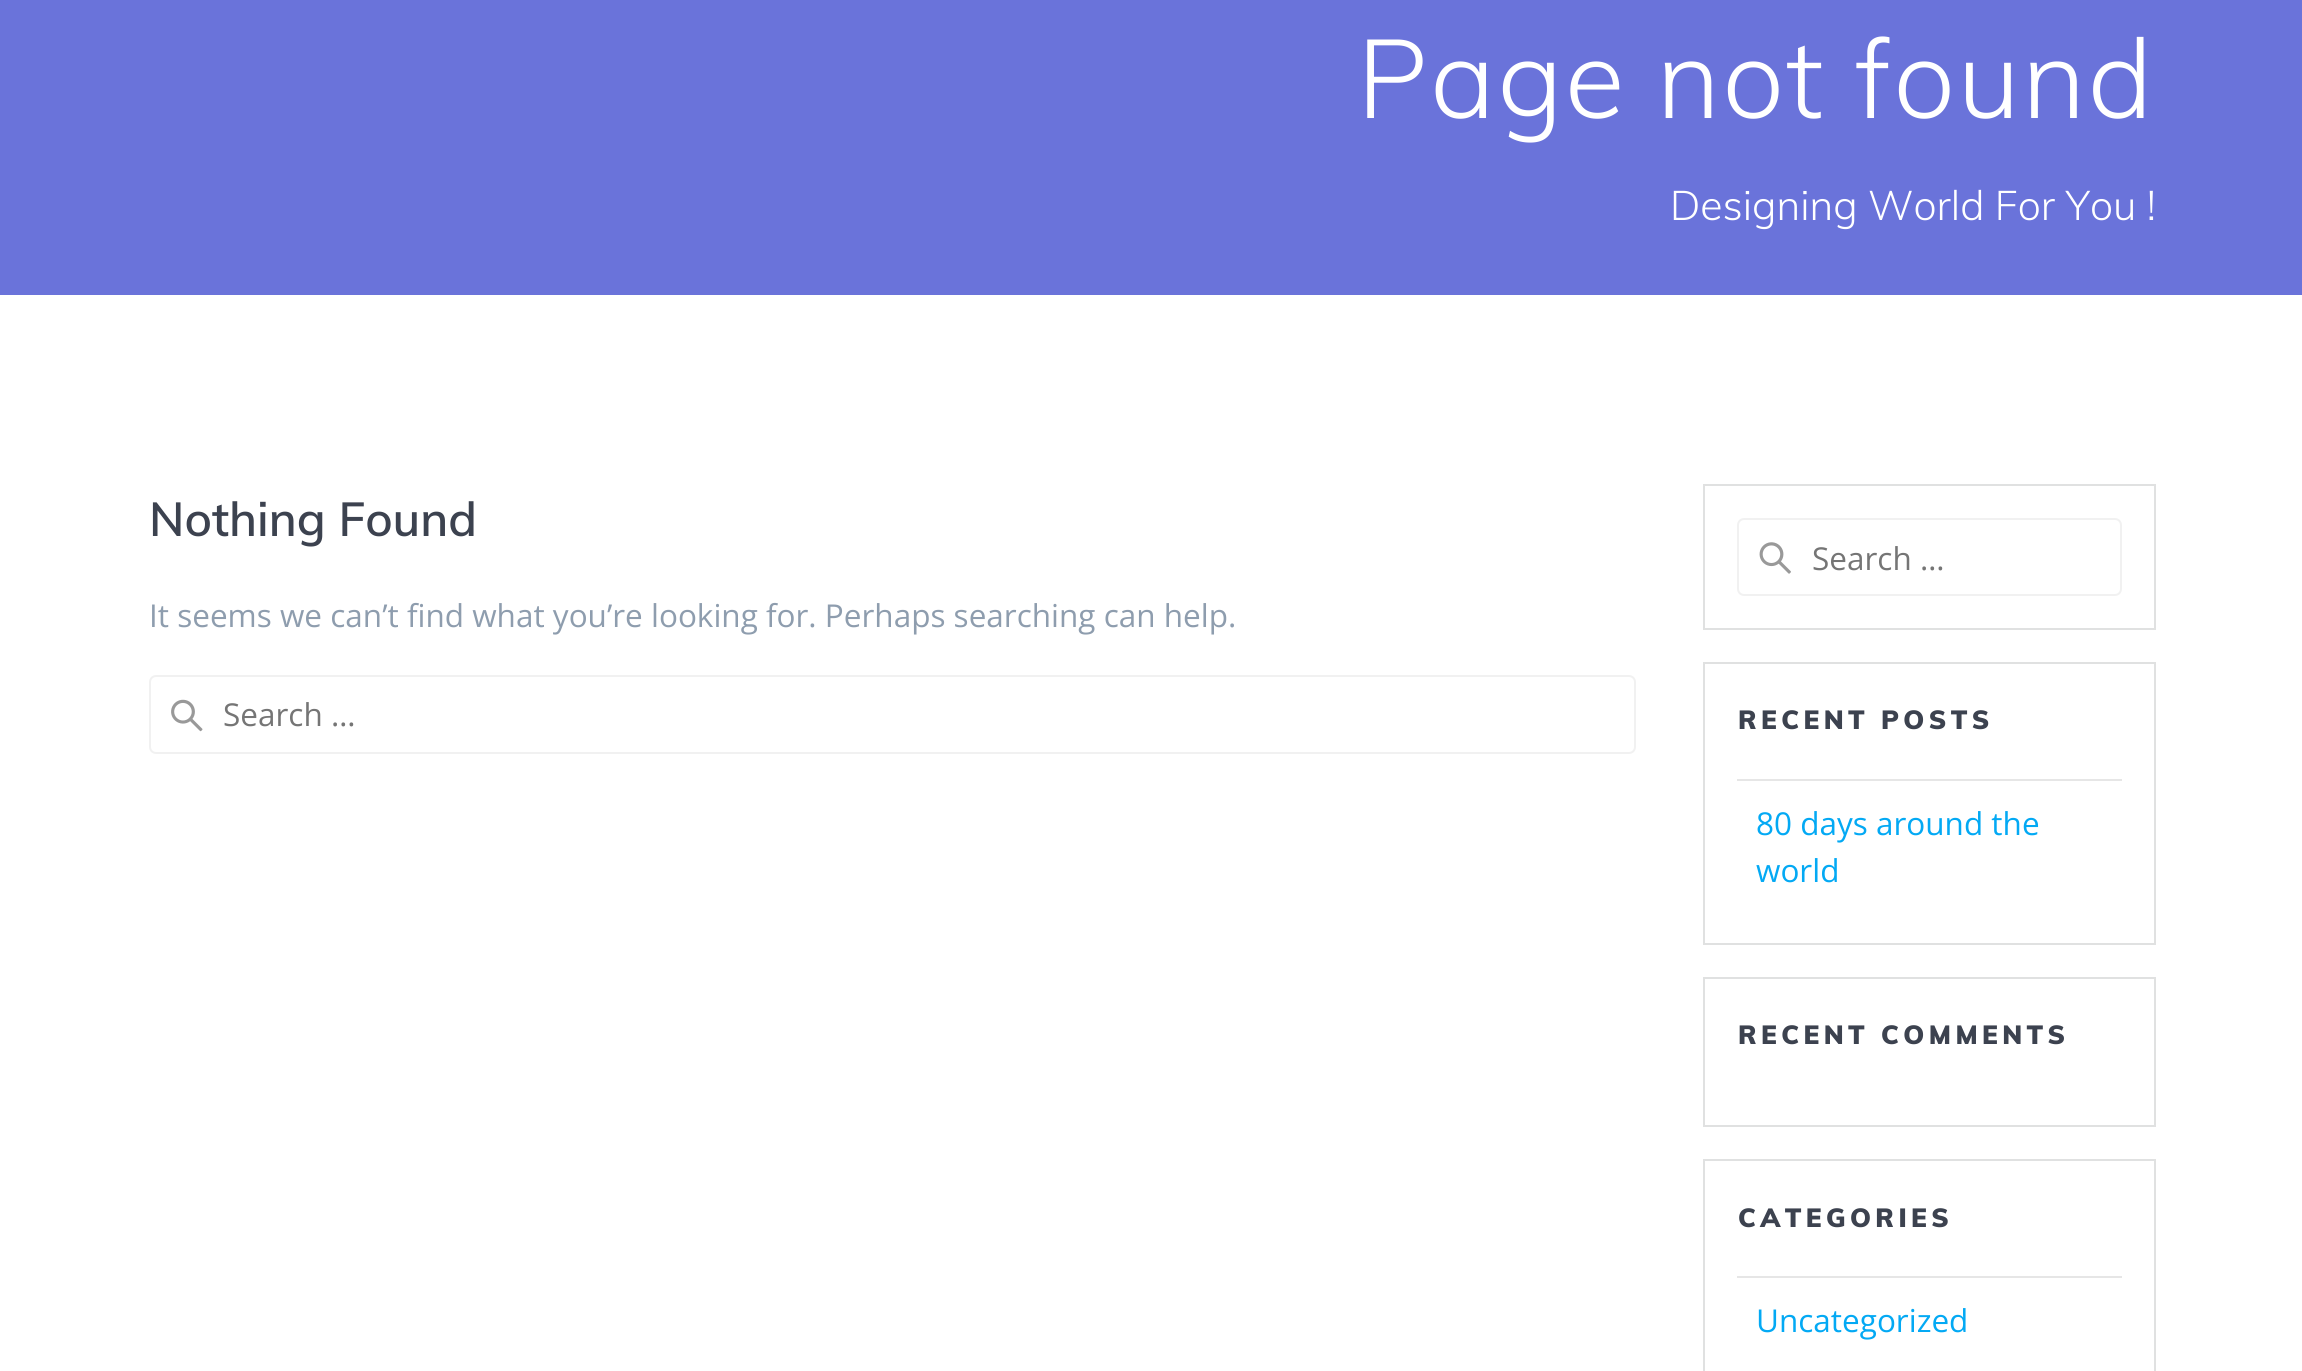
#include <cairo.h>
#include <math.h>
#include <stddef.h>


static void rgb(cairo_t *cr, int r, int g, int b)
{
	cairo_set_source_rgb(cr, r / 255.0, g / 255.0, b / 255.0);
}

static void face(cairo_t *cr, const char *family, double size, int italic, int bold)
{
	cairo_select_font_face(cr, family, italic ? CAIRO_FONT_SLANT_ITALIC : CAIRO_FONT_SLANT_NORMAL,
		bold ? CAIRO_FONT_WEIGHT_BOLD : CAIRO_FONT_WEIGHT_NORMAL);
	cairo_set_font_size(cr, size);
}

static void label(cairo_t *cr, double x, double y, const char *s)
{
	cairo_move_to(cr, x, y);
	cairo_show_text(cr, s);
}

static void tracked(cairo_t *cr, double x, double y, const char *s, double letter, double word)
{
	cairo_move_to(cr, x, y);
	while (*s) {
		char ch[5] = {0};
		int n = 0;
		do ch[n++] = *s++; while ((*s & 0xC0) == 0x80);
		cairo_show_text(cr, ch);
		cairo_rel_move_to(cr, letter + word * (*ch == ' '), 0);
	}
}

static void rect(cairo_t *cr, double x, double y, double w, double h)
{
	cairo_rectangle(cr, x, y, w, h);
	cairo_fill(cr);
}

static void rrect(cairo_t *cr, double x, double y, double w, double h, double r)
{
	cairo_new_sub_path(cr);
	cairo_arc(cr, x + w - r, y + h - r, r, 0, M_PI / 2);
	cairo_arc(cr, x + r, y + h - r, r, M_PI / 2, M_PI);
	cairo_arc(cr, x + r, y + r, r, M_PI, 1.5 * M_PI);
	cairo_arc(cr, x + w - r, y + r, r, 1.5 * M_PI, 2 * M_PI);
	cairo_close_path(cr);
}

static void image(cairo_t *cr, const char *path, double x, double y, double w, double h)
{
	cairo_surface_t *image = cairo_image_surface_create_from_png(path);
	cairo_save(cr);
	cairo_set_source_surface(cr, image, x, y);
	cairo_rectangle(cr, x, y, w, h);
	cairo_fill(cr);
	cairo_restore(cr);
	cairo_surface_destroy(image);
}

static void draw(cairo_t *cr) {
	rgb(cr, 106, 115, 218);
	cairo_paint(cr);
	face(cr, "Muli Light", 110.25, 0, 0);
	rgb(cr, 255, 255, 255);
	tracked(cr, 1357, 118, "Page not found", 2, 0);
	face(cr, "Muli Light", 41, 0, 0);
	label(cr, 1670, 220, "Designing World For You !");
	rect(cr, 0, 295, 2302, 1076);
	face(cr, "Muli SemiBold", 47.25, 0, 0);
	rgb(cr, 60, 66, 79);
	label(cr, 149, 536, "Nothing Found");
	face(cr, "Open Sans", 31.5, 0, 0);
	rgb(cr, 142, 157, 174);
	label(cr, 149, 627, "It seems we can’t find what you’re looking for. Perhaps searching can help.");
	image(cr, "image0.png", 171, 699, 32, 33);
	rrect(cr, 150, 676, 1485, 77, 6);
	rgb(cr, 241, 241, 241);
	cairo_stroke(cr);
	rgb(cr, 117, 117, 117);
	label(cr, 223, 726, "Search …");
	cairo_rectangle(cr, 1704, 485, 451, 144);
	rgb(cr, 224, 225, 225);
	cairo_stroke(cr);
	image(cr, "image1.png", 1759, 542, 32, 32);
	rrect(cr, 1738, 519, 383, 76, 6);
	rgb(cr, 241, 241, 241);
	cairo_stroke(cr);
	rgb(cr, 117, 117, 117);
	label(cr, 1812, 570, "Search …");
	cairo_rectangle(cr, 1704, 663, 451, 281);
	rgb(cr, 224, 225, 225);
	cairo_stroke(cr);
	face(cr, "Muli Black", 26.1, 0, 0);
	rgb(cr, 60, 66, 79);
	tracked(cr, 1738, 729, "RECENT POSTS", 4.4, 0);
	rgb(cr, 230, 230, 230);
	rect(cr, 1737, 779, 385, 2);
	face(cr, "Open Sans", 31.5, 0, 0);
	rgb(cr, 3, 169, 244);
	label(cr, 1756, 835, "80 days around the");
	label(cr, 1756, 882, "world");
	cairo_rectangle(cr, 1704, 978, 451, 148);
	rgb(cr, 224, 225, 225);
	cairo_stroke(cr);
	face(cr, "Muli Black", 26.1, 0, 0);
	rgb(cr, 60, 66, 79);
	tracked(cr, 1738, 1044, "RECENT COMMENTS", 4.4, 0);
	cairo_rectangle(cr, 1704, 1160, 451, 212);
	rgb(cr, 224, 225, 225);
	cairo_stroke(cr);
	rgb(cr, 60, 66, 79);
	tracked(cr, 1738, 1227, "CATEGORIES", 4.4, 0);
	rgb(cr, 230, 230, 230);
	rect(cr, 1737, 1276, 385, 2);
	face(cr, "Open Sans", 31.5, 0, 0);
	rgb(cr, 3, 169, 244);
	label(cr, 1756, 1332, "Uncategorized");
}

int main(void) {
	cairo_surface_t *surface = cairo_image_surface_create(CAIRO_FORMAT_RGB24, 2302, 1371);
	cairo_t *cr = cairo_create(surface);
	cairo_font_options_t *options = cairo_font_options_create();
	cairo_font_options_set_hint_metrics(options, CAIRO_HINT_METRICS_OFF);
	cairo_font_options_set_hint_style(options, CAIRO_HINT_STYLE_NONE);
	cairo_set_font_options(cr, options);
	cairo_set_miter_limit(cr, 4);
	draw(cr);
	cairo_surface_write_to_png(surface, "render.png");
	cairo_font_options_destroy(options);
	cairo_destroy(cr);
	cairo_surface_destroy(surface);
	return 0;
}
